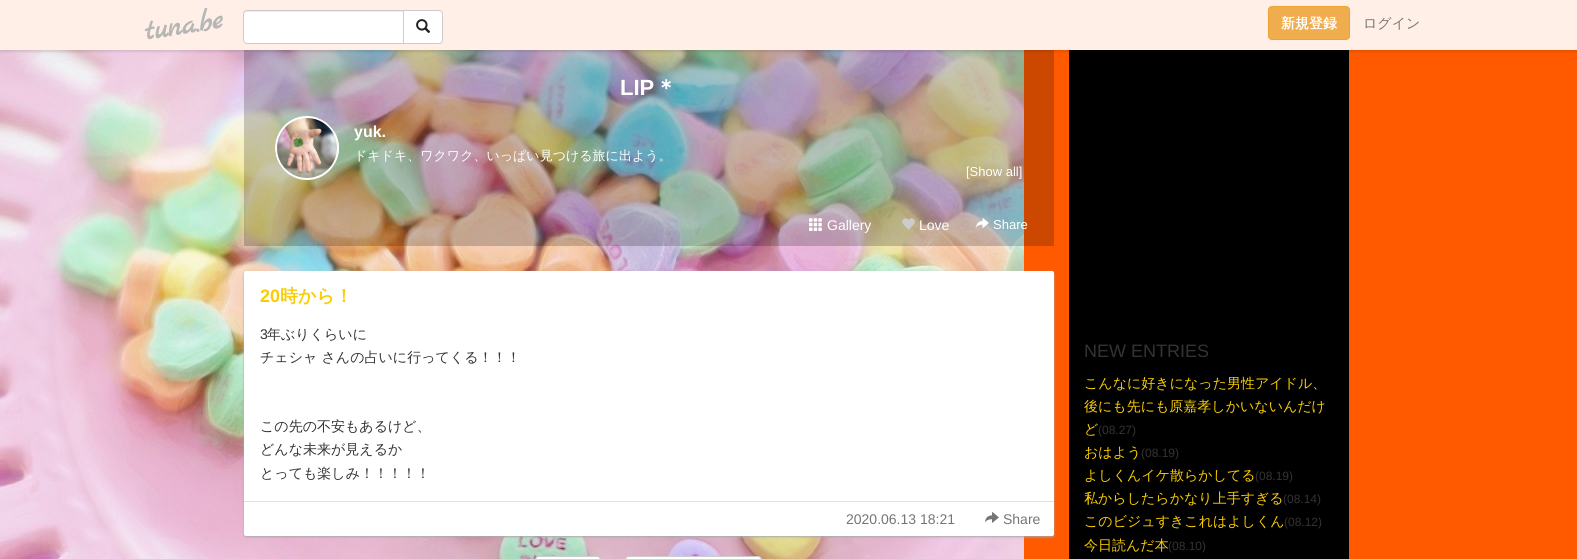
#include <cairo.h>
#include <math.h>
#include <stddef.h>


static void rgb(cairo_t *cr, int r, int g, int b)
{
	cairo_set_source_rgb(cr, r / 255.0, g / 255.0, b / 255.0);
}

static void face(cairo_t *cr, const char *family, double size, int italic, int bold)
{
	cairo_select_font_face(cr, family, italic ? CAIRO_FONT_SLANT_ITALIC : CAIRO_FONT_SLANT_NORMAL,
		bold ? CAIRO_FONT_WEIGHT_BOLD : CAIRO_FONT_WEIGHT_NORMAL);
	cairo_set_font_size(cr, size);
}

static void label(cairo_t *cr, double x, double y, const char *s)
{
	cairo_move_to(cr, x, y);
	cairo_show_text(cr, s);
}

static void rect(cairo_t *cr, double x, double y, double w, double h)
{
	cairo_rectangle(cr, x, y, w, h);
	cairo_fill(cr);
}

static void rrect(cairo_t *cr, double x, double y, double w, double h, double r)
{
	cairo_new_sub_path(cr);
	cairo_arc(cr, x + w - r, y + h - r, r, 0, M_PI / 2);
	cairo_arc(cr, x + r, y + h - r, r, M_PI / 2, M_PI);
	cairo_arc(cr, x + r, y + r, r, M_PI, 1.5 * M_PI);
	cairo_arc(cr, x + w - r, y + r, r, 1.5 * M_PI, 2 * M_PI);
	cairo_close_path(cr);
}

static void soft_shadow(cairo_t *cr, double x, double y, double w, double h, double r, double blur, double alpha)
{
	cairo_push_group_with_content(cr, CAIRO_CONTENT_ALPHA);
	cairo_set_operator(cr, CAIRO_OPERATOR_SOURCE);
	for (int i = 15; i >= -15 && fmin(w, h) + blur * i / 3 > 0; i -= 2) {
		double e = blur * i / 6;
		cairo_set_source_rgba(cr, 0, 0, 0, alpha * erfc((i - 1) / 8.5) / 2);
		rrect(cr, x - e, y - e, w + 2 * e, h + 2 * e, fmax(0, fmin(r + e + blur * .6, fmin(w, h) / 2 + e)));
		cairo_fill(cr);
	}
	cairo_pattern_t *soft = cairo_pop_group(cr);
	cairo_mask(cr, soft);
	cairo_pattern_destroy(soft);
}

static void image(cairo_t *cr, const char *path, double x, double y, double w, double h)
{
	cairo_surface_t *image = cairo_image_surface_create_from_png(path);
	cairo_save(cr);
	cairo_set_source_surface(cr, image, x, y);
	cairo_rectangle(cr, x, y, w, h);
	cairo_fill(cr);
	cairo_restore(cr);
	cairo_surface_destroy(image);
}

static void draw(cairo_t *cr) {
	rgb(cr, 255, 90, 0);
	cairo_paint(cr);
	image(cr, "image0.png", 0, 50, 1024, 509);
	cairo_set_source_rgba(cr, 0, 0, 0, 0.2);
	rect(cr, 244, 50, 810, 196);
	rgb(cr, 0, 0, 0);
	rect(cr, 1069, 50, 280, 509);
	rgb(cr, 0, 0, 0);
	soft_shadow(cr, 0, 2, 1577, 50, 0, 1, 0.1);
	rgb(cr, 255, 239, 230);
	rect(cr, 0, 0, 1577, 50);
	cairo_save(cr);
	cairo_new_path(cr);
	cairo_move_to(cr, 140.5, 6.5);
	cairo_line_to(cr, 219, -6);
	cairo_line_to(cr, 226.5, 43.5);
	cairo_line_to(cr, 148.5, 56);
	cairo_close_path(cr);
	cairo_clip(cr);
	face(cr, "Marck Script", 30, 0, 1);
	rgb(cr, 182, 182, 182);
	cairo_save(cr);
	cairo_translate(cr, 146, 40);
	cairo_rotate(cr, -9 * M_PI / 180);
	label(cr, 0, 0, "tuna.be");
	cairo_restore(cr);
	cairo_restore(cr);
	rgb(cr, 255, 255, 255);
	cairo_new_path(cr);
	cairo_move_to(cr, 247, 10);
	cairo_line_to(cr, 404, 10);
	cairo_line_to(cr, 404, 44);
	cairo_line_to(cr, 247, 44);
	cairo_curve_to(cr, 245, 44, 243, 42, 243, 40);
	cairo_line_to(cr, 243, 14);
	cairo_curve_to(cr, 243, 12, 245, 10, 247, 10);
	cairo_close_path(cr);
	cairo_fill(cr);
	rgb(cr, 236, 236, 236);
	cairo_new_path(cr);
	cairo_move_to(cr, 247, 12);
	cairo_line_to(cr, 403, 12);
	cairo_line_to(cr, 403, 11);
	cairo_line_to(cr, 246, 11);
	cairo_curve_to(cr, 244, 11, 244, 13, 244, 15);
	cairo_curve_to(cr, 244, 13, 245, 12, 247, 12);
	cairo_close_path(cr);
	cairo_fill(cr);
	cairo_new_path(cr);
	cairo_move_to(cr, 247, 10.5);
	cairo_line_to(cr, 403.5, 10.5);
	cairo_line_to(cr, 403.5, 43.5);
	cairo_line_to(cr, 247, 43.5);
	cairo_curve_to(cr, 245, 43.5, 243.5, 42, 243.5, 40);
	cairo_line_to(cr, 243.5, 14);
	cairo_curve_to(cr, 243.5, 12, 245, 10.5, 247, 10.5);
	cairo_close_path(cr);
	rgb(cr, 204, 204, 204);
	cairo_set_line_width(cr, 1);
	cairo_stroke(cr);
	rgb(cr, 255, 255, 255);
	cairo_new_path(cr);
	cairo_move_to(cr, 403.5, 10.5);
	cairo_line_to(cr, 439, 10.5);
	cairo_curve_to(cr, 441, 10.5, 442.5, 12, 442.5, 14);
	cairo_line_to(cr, 442.5, 40);
	cairo_curve_to(cr, 442.5, 42, 441, 43.5, 439, 43.5);
	cairo_line_to(cr, 403.5, 43.5);
	cairo_close_path(cr);
	cairo_fill_preserve(cr);
	rgb(cr, 204, 204, 204);
	cairo_stroke(cr);
	image(cr, "image1.png", 416, 19, 15, 14);
	rgb(cr, 240, 173, 78);
	rrect(cr, 1268.5, 6.5, 81, 33, 3.5);
	cairo_fill_preserve(cr);
	rgb(cr, 238, 162, 54);
	cairo_stroke(cr);
	face(cr, "WenQuanYi Zen Hei", 14, 0, 1);
	rgb(cr, 255, 255, 255);
	label(cr, 1281, 28, "新規登録");
	face(cr, "WenQuanYi Zen Hei Medium", 14, 0, 0);
	rgb(cr, 117, 117, 117);
	label(cr, 1363, 28, "ログイン");
	face(cr, "Liberation Sans", 22, 0, 1);
	rgb(cr, 255, 255, 255);
	label(cr, 620, 95, "LIP");
	face(cr, "WenQuanYi Zen Hei", 22, 0, 1);
	label(cr, 655, 95, "＊");
	image(cr, "image2.png", 275, 118, 64, 60);
	cairo_arc(cr, 307, 148, 31, 0, 2 * M_PI);
	cairo_set_line_width(cr, 2);
	cairo_stroke(cr);
	face(cr, "Liberation Sans", 16, 0, 1);
	label(cr, 354, 137, "yuk.");
	face(cr, "WenQuanYi Zen Hei Medium", 13, 0, 0);
	label(cr, 354, 160, "ドキドキ、ワクワク、いっぱい見つける旅に出よう。");
	face(cr, "Liberation Sans", 13, 0, 0);
	label(cr, 966, 176, "[Show all]");
	image(cr, "image3.png", 809, 218, 13, 13);
	face(cr, "Liberation Sans", 14, 0, 0);
	label(cr, 827, 230, "Gallery");
	image(cr, "image4.png", 902, 218, 13, 12);
	label(cr, 919, 230, "Love");
	image(cr, "image5.png", 976, 218, 13, 10);
	face(cr, "Liberation Sans", 13, 0, 0);
	label(cr, 993, 229, "Share");
	rgb(cr, 170, 170, 170);
	soft_shadow(cr, 244, 272, 810, 265, 2, 1, 1);
	rgb(cr, 255, 255, 255);
	rrect(cr, 244, 271, 810, 265, 2);
	cairo_fill(cr);
	face(cr, "Liberation Sans", 18, 0, 1);
	rgb(cr, 249, 205, 3);
	label(cr, 260, 302, "20");
	face(cr, "WenQuanYi Zen Hei", 18, 0, 1);
	label(cr, 280, 302, "時から！");
	face(cr, "Liberation Sans", 14, 0, 0);
	rgb(cr, 51, 51, 51);
	label(cr, 260, 339, "3");
	face(cr, "WenQuanYi Zen Hei Medium", 14, 0, 0);
	label(cr, 267, 339, "年ぶりくらいに");
	label(cr, 260, 362, "チェシャ さんの占いに行ってくる！！！");
	label(cr, 260, 431, "この先の不安もあるけど、");
	label(cr, 260, 454, "どんな未来が見えるか");
	label(cr, 260, 478, "とっても楽しみ！！！！！");
	rgb(cr, 224, 224, 224);
	rect(cr, 244, 501, 810, 1);
	face(cr, "Liberation Sans", 14, 0, 0);
	rgb(cr, 117, 117, 117);
	label(cr, 846, 524, "2020.06.13 18:21");
	image(cr, "image6.png", 985, 512, 14, 11);
	label(cr, 1003, 524, "Share");
	rgb(cr, 255, 255, 255);
	rrect(cr, 535.5, 556.5, 65, 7, 3.5);
	cairo_fill_preserve(cr);
	rgb(cr, 204, 204, 204);
	cairo_set_line_width(cr, 1);
	cairo_stroke(cr);
	rgb(cr, 255, 255, 255);
	rrect(cr, 625.5, 556.5, 136, 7, 3.5);
	cairo_fill_preserve(cr);
	rgb(cr, 204, 204, 204);
	cairo_stroke(cr);
	face(cr, "Liberation Sans", 18, 0, 0);
	rgb(cr, 51, 51, 51);
	label(cr, 1084, 357, "NEW ENTRIES");
	face(cr, "WenQuanYi Zen Hei Medium", 14, 0, 0);
	rgb(cr, 249, 205, 3);
	label(cr, 1084, 388, "こんなに好きになった男性アイドル、");
	label(cr, 1084, 411, "後にも先にも原嘉孝しかいないんだけ");
	label(cr, 1084, 434, "ど");
	face(cr, "Liberation Sans", 12, 0, 0);
	rgb(cr, 51, 51, 51);
	label(cr, 1098, 434, "(08.27)");
	face(cr, "WenQuanYi Zen Hei Medium", 14, 0, 0);
	rgb(cr, 249, 205, 3);
	label(cr, 1084, 457, "おはよう");
	face(cr, "Liberation Sans", 12, 0, 0);
	rgb(cr, 51, 51, 51);
	label(cr, 1141, 457, "(08.19)");
	face(cr, "WenQuanYi Zen Hei Medium", 14, 0, 0);
	rgb(cr, 249, 205, 3);
	label(cr, 1084, 480, "よしくんイケ散らかしてる");
	face(cr, "Liberation Sans", 12, 0, 0);
	rgb(cr, 51, 51, 51);
	label(cr, 1255, 480, "(08.19)");
	face(cr, "WenQuanYi Zen Hei Medium", 14, 0, 0);
	rgb(cr, 249, 205, 3);
	label(cr, 1084, 503, "私からしたらかなり上手すぎる");
	face(cr, "Liberation Sans", 12, 0, 0);
	rgb(cr, 51, 51, 51);
	label(cr, 1283, 503, "(08.14)");
	face(cr, "WenQuanYi Zen Hei Medium", 14, 0, 0);
	rgb(cr, 249, 205, 3);
	label(cr, 1084, 526, "このビジュすきこれはよしくん");
	face(cr, "Liberation Sans", 12, 0, 0);
	rgb(cr, 51, 51, 51);
	label(cr, 1284, 526, "(08.12)");
	face(cr, "WenQuanYi Zen Hei Medium", 14, 0, 0);
	rgb(cr, 249, 205, 3);
	label(cr, 1084, 550, "今日読んだ本");
	face(cr, "Liberation Sans", 12, 0, 0);
	rgb(cr, 51, 51, 51);
	label(cr, 1168, 550, "(08.10)");
}

int main(void) {
	cairo_surface_t *surface = cairo_image_surface_create(CAIRO_FORMAT_RGB24, 1577, 559);
	cairo_t *cr = cairo_create(surface);
	cairo_font_options_t *options = cairo_font_options_create();
	cairo_font_options_set_hint_metrics(options, CAIRO_HINT_METRICS_OFF);
	cairo_font_options_set_hint_style(options, CAIRO_HINT_STYLE_NONE);
	cairo_set_font_options(cr, options);
	cairo_set_miter_limit(cr, 4);
	draw(cr);
	cairo_surface_write_to_png(surface, "render.png");
	cairo_font_options_destroy(options);
	cairo_destroy(cr);
	cairo_surface_destroy(surface);
	return 0;
}
